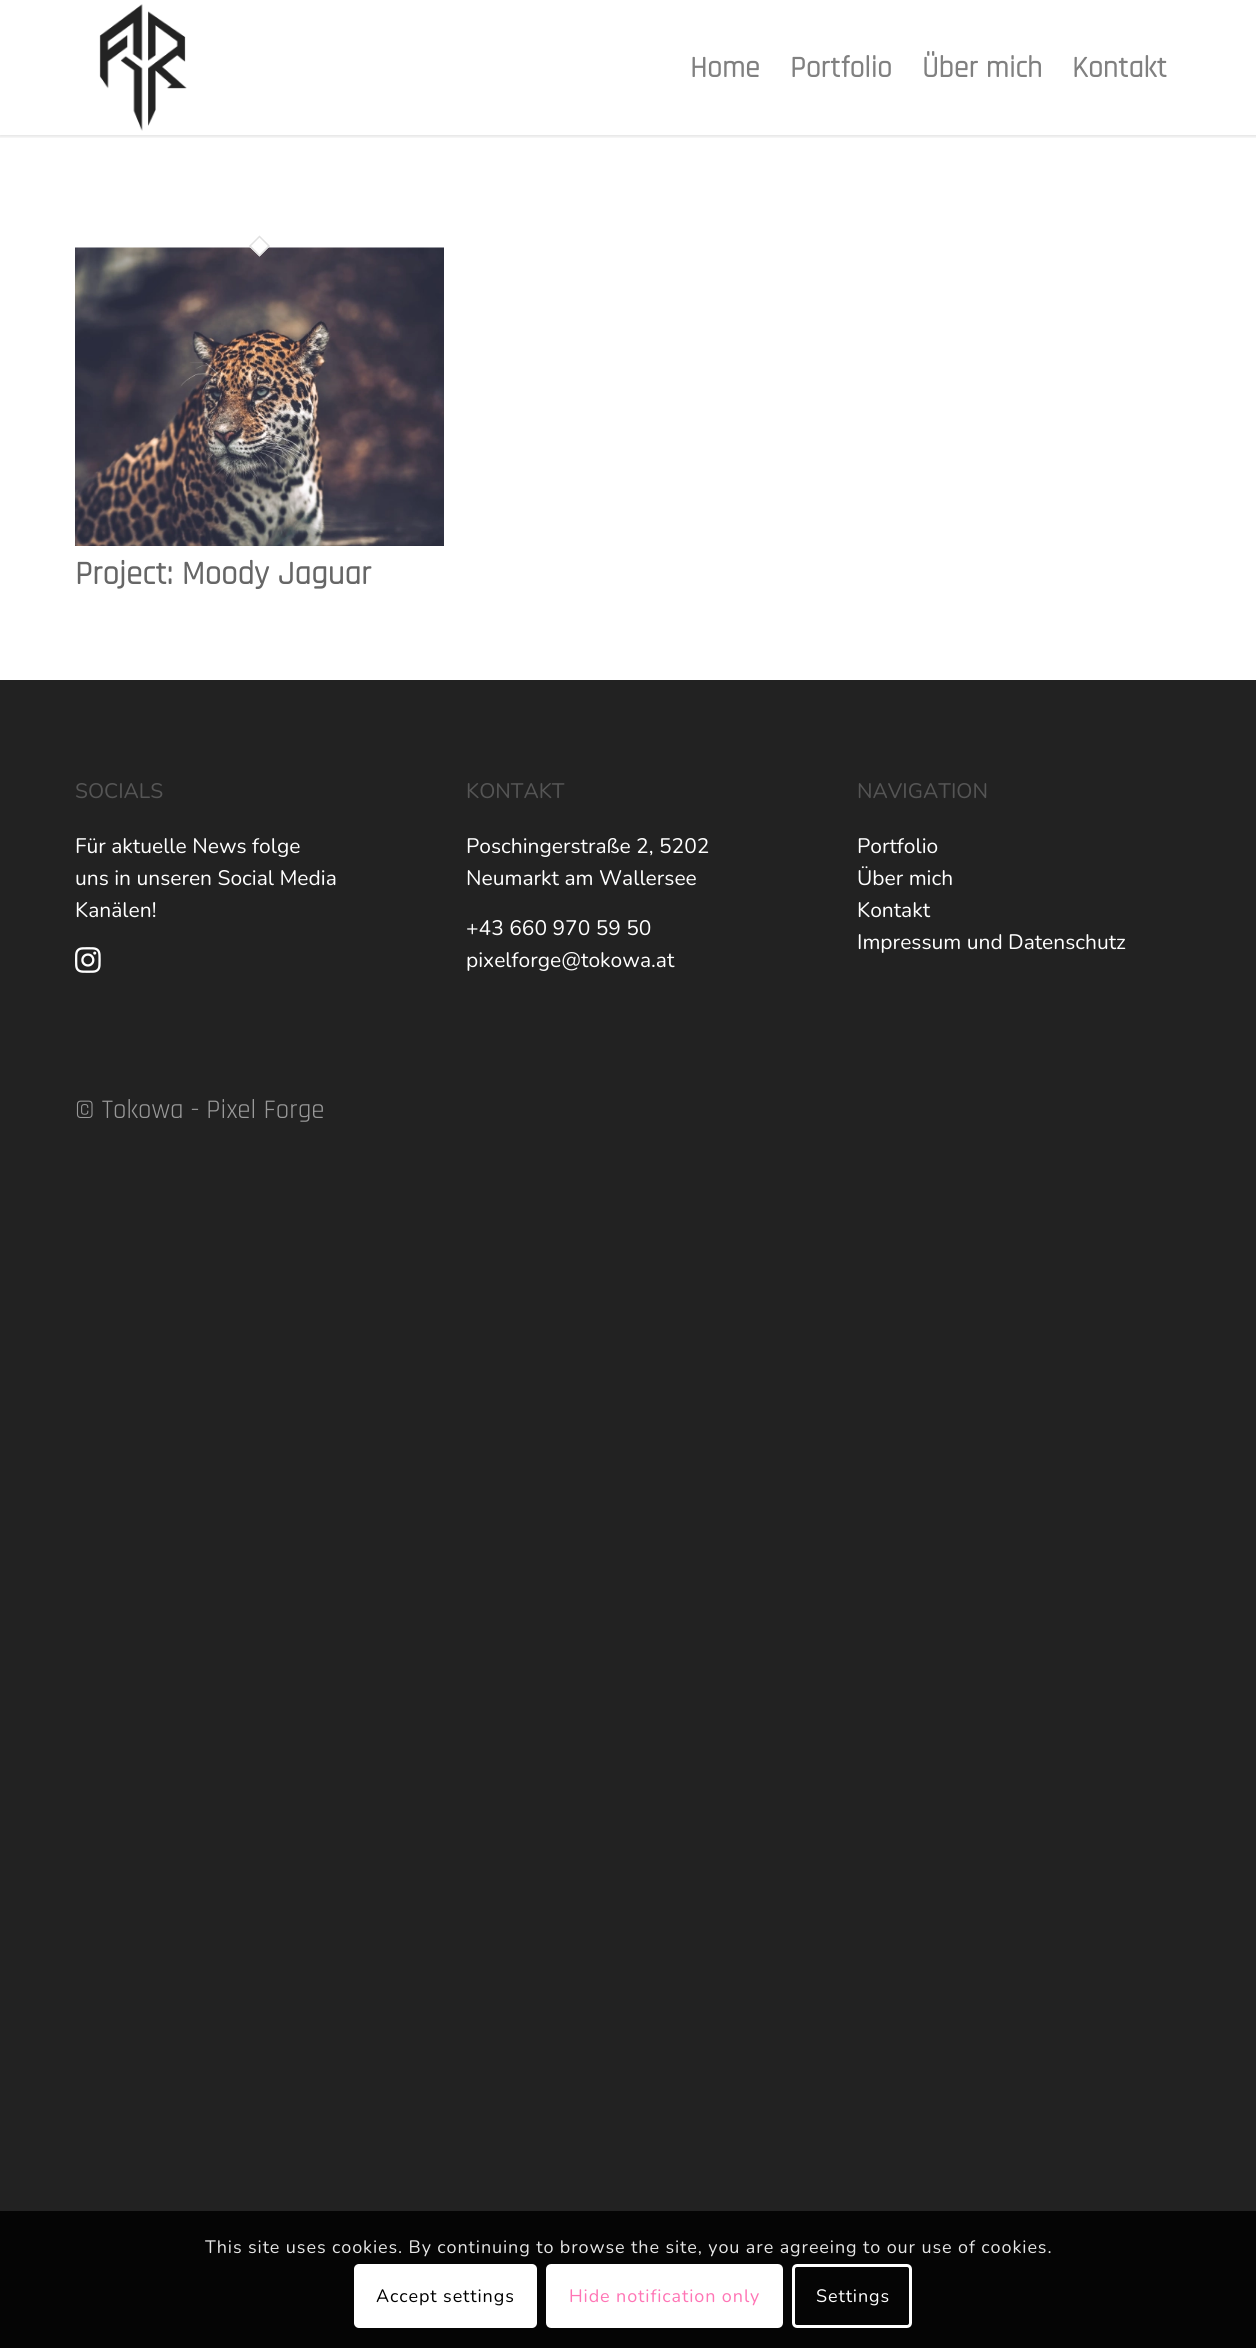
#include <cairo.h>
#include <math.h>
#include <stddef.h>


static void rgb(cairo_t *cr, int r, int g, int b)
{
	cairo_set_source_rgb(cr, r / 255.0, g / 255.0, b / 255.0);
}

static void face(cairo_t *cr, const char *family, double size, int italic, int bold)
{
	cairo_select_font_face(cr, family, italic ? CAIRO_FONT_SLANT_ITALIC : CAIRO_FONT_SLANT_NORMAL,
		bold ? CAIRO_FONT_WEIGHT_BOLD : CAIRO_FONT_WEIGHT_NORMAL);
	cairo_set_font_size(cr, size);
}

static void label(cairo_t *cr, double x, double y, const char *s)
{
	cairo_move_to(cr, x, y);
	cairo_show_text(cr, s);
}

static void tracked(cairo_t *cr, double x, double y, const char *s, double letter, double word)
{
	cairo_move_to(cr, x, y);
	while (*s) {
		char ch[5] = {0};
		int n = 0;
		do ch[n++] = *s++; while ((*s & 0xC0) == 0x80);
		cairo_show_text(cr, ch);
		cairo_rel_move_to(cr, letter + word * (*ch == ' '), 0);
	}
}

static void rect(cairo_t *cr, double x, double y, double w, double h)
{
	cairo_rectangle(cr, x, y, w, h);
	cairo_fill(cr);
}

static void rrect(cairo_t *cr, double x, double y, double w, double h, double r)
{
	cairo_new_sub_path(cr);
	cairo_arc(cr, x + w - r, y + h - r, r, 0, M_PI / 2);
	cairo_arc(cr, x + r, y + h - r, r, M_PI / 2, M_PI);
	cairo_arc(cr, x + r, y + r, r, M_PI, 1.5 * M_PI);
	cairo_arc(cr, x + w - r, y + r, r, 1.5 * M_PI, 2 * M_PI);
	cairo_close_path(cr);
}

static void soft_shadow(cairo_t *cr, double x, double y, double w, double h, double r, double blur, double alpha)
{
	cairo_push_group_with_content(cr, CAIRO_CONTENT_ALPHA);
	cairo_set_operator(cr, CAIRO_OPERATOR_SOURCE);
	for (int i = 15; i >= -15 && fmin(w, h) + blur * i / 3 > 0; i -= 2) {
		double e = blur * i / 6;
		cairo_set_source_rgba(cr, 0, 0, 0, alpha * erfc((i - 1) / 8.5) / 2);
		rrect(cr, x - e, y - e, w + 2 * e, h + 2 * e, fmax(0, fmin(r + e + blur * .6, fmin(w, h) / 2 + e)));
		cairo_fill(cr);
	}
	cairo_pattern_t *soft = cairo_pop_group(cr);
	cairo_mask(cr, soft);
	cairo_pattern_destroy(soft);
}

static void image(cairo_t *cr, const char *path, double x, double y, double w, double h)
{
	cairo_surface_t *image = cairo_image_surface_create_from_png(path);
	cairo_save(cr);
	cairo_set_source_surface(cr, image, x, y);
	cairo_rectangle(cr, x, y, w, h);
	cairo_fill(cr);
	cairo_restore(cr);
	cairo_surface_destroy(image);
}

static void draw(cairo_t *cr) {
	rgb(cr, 34, 34, 34);
	cairo_paint(cr);
	rgb(cr, 255, 255, 255);
	rect(cr, 0, 0, 1256, 680);
	cairo_save(cr);
	cairo_rectangle(cr, 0, 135, 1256, 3);
	cairo_clip(cr);
	rgb(cr, 0, 0, 0);
	soft_shadow(cr, -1, -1, 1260, 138, 0, 1.5, 0.1);
	cairo_restore(cr);
	image(cr, "image0.png", 99, 4, 88, 127);
	face(cr, "Rajdhani", 30, 0, 1);
	rgb(cr, 128, 128, 128);
	label(cr, 690, 77, "Home");
	label(cr, 790, 77, "Portfolio");
	label(cr, 922, 77, "Über mich");
	label(cr, 1072, 77, "Kontakt");
	image(cr, "image1.png", 75, 247, 369, 299);
	rgb(cr, 255, 255, 255);
	cairo_new_path(cr);
	cairo_move_to(cr, 259.5, 235.5);
	cairo_line_to(cr, 270, 246);
	cairo_line_to(cr, 259.5, 256.5);
	cairo_line_to(cr, 248.5, 246);
	cairo_close_path(cr);
	cairo_fill(cr);
	cairo_new_path(cr);
	cairo_move_to(cr, 259.5, 236.5);
	cairo_line_to(cr, 269, 246);
	cairo_line_to(cr, 259.5, 255.5);
	cairo_line_to(cr, 250, 246);
	cairo_close_path(cr);
	rgb(cr, 225, 225, 225);
	cairo_set_line_width(cr, 1.5);
	cairo_stroke(cr);
	face(cr, "Rajdhani", 33, 0, 1);
	rgb(cr, 102, 102, 102);
	label(cr, 75, 584, "Project: Moody Jaguar");
	face(cr, "Nunito ExtraLight", 21, 0, 0);
	rgb(cr, 85, 85, 85);
	label(cr, 75, 798, "SOCIALS");
	rgb(cr, 255, 255, 255);
	label(cr, 75, 853, "Für aktuelle News folge");
	label(cr, 75, 885, "uns in unseren Social Media");
	label(cr, 75, 917, "Kanälen!");
	image(cr, "image2.png", 75, 947, 26, 26);
	rgb(cr, 85, 85, 85);
	label(cr, 466, 798, "KONTAKT");
	rgb(cr, 255, 255, 255);
	label(cr, 466, 853, "Poschingerstraße 2, 5202");
	label(cr, 466, 885, "Neumarkt am Wallersee");
	label(cr, 466, 935, "+43 660 970 59 50");
	label(cr, 466, 967, "pixelforge@tokowa.at");
	rgb(cr, 85, 85, 85);
	label(cr, 857, 798, "NAVIGATION");
	rgb(cr, 255, 255, 255);
	label(cr, 857, 853, "Portfolio");
	label(cr, 857, 885, "Über mich");
	label(cr, 857, 917, "Kontakt");
	label(cr, 857, 949, "Impressum und Datenschutz");
	face(cr, "Rajdhani", 27, 0, 0);
	rgb(cr, 153, 153, 153);
	label(cr, 75, 1118, "© Tokowa - Pixel Forge");
	rgb(cr, 5, 5, 5);
	rect(cr, 0, 2211, 1256, 137);
	face(cr, "Nunito ExtraLight", 18, 0, 0);
	rgb(cr, 230, 230, 230);
	tracked(cr, 205, 2253, "This site uses cookies. By continuing to browse the site, you are agreeing to our use of cookies.", 0.9, 0);
	rgb(cr, 255, 255, 255);
	rrect(cr, 354, 2264, 183, 64, 5);
	cairo_fill(cr);
	rgb(cr, 0, 0, 0);
	tracked(cr, 376, 2302, "Accept settings", 0.9, 0);
	rgb(cr, 255, 255, 255);
	rrect(cr, 547.5, 2265.5, 234, 61, 3.5);
	cairo_fill_preserve(cr);
	cairo_set_line_width(cr, 3);
	cairo_stroke(cr);
	rgb(cr, 255, 117, 181);
	tracked(cr, 569, 2302, "Hide notification only", 0.9, 0);
	rrect(cr, 793.5, 2265.5, 117, 61, 3.5);
	rgb(cr, 255, 255, 255);
	cairo_stroke(cr);
	tracked(cr, 816, 2302, "Settings", 0.9, 0);
}

int main(void) {
	cairo_surface_t *surface = cairo_image_surface_create(CAIRO_FORMAT_RGB24, 1256, 2348);
	cairo_t *cr = cairo_create(surface);
	cairo_font_options_t *options = cairo_font_options_create();
	cairo_font_options_set_hint_metrics(options, CAIRO_HINT_METRICS_OFF);
	cairo_font_options_set_hint_style(options, CAIRO_HINT_STYLE_NONE);
	cairo_set_font_options(cr, options);
	cairo_set_miter_limit(cr, 4);
	draw(cr);
	cairo_surface_write_to_png(surface, "render.png");
	cairo_font_options_destroy(options);
	cairo_destroy(cr);
	cairo_surface_destroy(surface);
	return 0;
}
